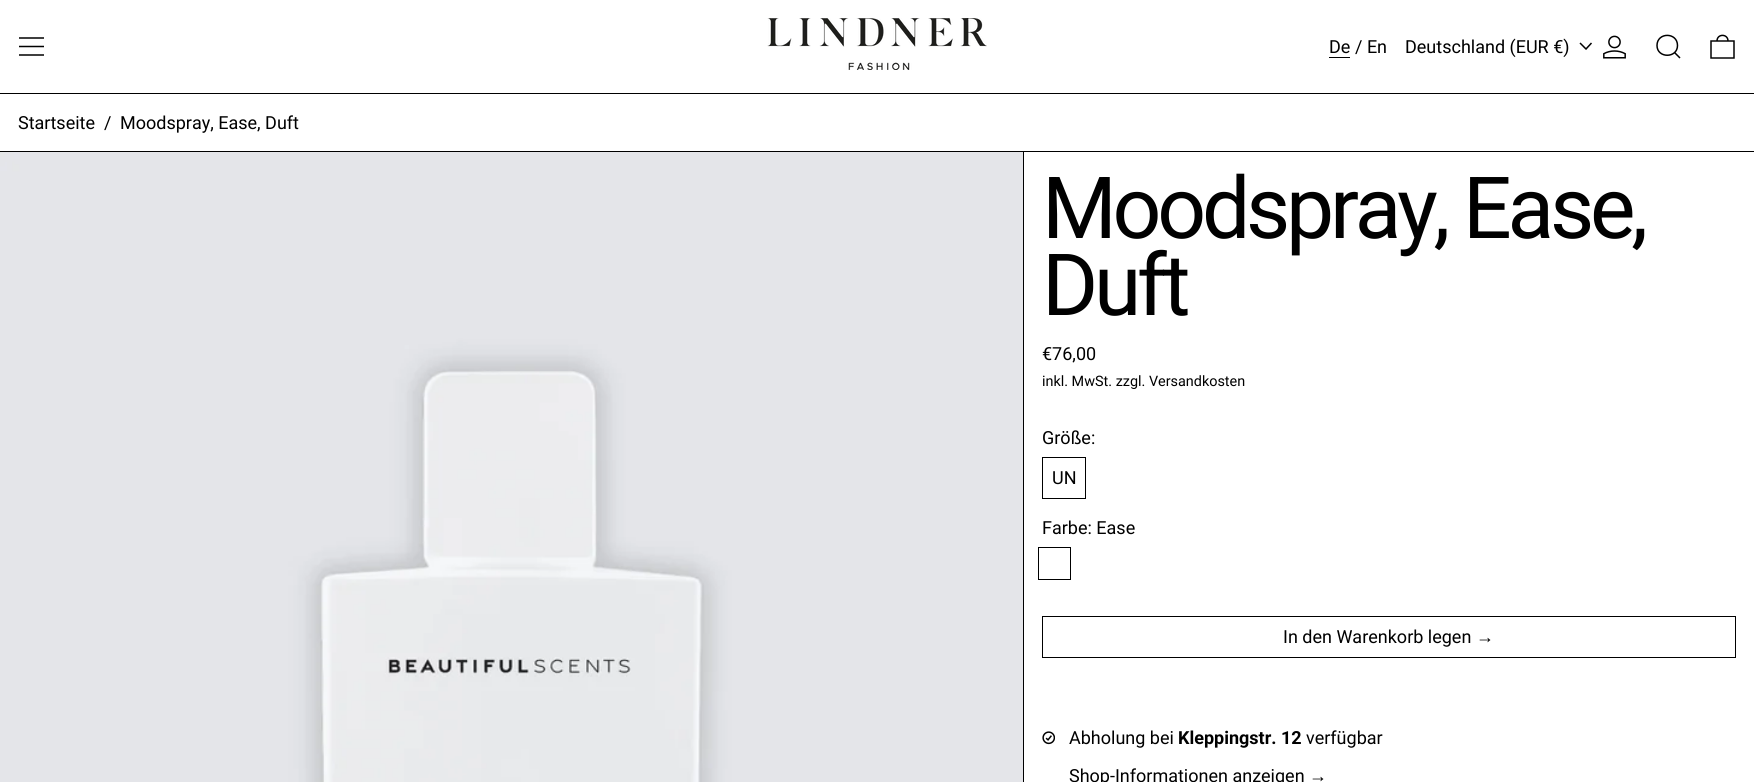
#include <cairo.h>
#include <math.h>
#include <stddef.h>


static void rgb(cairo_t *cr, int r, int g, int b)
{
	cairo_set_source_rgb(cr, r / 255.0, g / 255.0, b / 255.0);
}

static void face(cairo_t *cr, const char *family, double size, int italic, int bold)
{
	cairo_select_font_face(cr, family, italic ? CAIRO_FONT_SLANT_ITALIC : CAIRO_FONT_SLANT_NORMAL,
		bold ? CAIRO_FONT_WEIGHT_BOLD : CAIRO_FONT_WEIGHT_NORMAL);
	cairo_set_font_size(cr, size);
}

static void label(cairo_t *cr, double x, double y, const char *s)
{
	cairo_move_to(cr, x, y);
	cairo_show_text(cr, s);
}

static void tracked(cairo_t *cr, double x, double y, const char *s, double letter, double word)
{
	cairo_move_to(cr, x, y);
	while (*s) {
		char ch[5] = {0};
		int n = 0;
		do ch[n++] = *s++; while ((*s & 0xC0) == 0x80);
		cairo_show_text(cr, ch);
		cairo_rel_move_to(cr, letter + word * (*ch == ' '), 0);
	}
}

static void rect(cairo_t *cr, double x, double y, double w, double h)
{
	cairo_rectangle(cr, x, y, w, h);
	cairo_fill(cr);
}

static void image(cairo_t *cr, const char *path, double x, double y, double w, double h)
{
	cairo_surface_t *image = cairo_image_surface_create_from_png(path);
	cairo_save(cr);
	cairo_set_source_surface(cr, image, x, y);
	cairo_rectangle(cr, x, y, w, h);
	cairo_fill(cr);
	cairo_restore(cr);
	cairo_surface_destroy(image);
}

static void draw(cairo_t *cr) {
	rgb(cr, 255, 255, 255);
	cairo_paint(cr);
	rgb(cr, 0, 0, 0);
	rect(cr, 0, 93, 1754, 1);
	cairo_new_path(cr);
	cairo_move_to(cr, 19, 38);
	cairo_line_to(cr, 44, 38);
	cairo_move_to(cr, 19, 46.5);
	cairo_line_to(cr, 44, 46.5);
	cairo_move_to(cr, 19, 55);
	cairo_line_to(cr, 44, 55);
	cairo_set_line_width(cr, 1.5);
	cairo_stroke(cr);
	image(cr, "image0.png", 767, 18, 220, 52);
	face(cr, "Roboto", 18, 0, 0);
	label(cr, 1329, 53, "De");
	rect(cr, 1329, 57, 21, 1);
	label(cr, 1355, 53, "/ En");
	label(cr, 1405, 53, "Deutschland (EUR €)");
	cairo_new_path(cr);
	cairo_move_to(cr, 1580, 43);
	cairo_line_to(cr, 1586, 49);
	cairo_line_to(cr, 1591.5, 43);
	cairo_stroke(cr);
	image(cr, "image1.png", 1603, 35, 23, 24);
	cairo_new_path(cr);
	cairo_move_to(cr, 1657, 45.5);
	cairo_curve_to(cr, 1657, 58.5, 1677.5, 58.5, 1677.5, 45.5);
	cairo_curve_to(cr, 1677.5, 32, 1657, 32, 1657, 45.5);
	cairo_close_path(cr);
	cairo_move_to(cr, 1674.5, 52.5);
	cairo_line_to(cr, 1680, 58);
	cairo_stroke(cr);
	cairo_new_path(cr);
	cairo_move_to(cr, 1711, 41);
	cairo_line_to(cr, 1734, 41);
	cairo_line_to(cr, 1734, 58);
	cairo_line_to(cr, 1711, 58);
	cairo_close_path(cr);
	cairo_move_to(cr, 1728, 41);
	cairo_curve_to(cr, 1728, 33.5, 1717, 33.5, 1717, 41);
	cairo_stroke(cr);
	rect(cr, 0, 151, 1754, 1);
	label(cr, 18, 129, "Startseite");
	label(cr, 104, 129, "/");
	label(cr, 120, 129, "Moodspray, Ease, Duft");
	rect(cr, 1023, 152, 1, 630);
	image(cr, "image2.png", 0, 152, 1023, 630);
	face(cr, "Roboto", 85.75, 0, 0);
	tracked(cr, 1042, 238, "Moodspray, Ease,", -4.25, 0);
	tracked(cr, 1042, 315, "Duft", -4.25, 0);
	face(cr, "Roboto", 18, 0, 0);
	label(cr, 1042, 360, "€76,00");
	face(cr, "Roboto", 14.4, 0, 0);
	label(cr, 1042, 386, "inkl. MwSt. zzgl. Versandkosten");
	face(cr, "Roboto", 18, 0, 0);
	label(cr, 1042, 444, "Größe:");
	cairo_rectangle(cr, 1042.5, 457.5, 43, 41);
	cairo_set_line_width(cr, 1);
	cairo_stroke(cr);
	label(cr, 1052, 484, "UN");
	label(cr, 1042, 534, "Farbe: Ease");
	cairo_rectangle(cr, 1038.5, 547.5, 32, 32);
	cairo_stroke(cr);
	cairo_rectangle(cr, 1042.5, 616.5, 693, 41);
	cairo_stroke(cr);
	label(cr, 1283, 643, "In den Warenkorb legen");
	face(cr, "Liberation Sans", 18, 0, 0);
	label(cr, 1476, 643, "→");
	image(cr, "image3.png", 1042, 731, 13, 14);
	face(cr, "Roboto", 18, 0, 0);
	label(cr, 1069, 744, "Abholung bei");
	face(cr, "Roboto", 18, 0, 1);
	label(cr, 1178, 744, "Kleppingstr. 12");
	face(cr, "Roboto", 18, 0, 0);
	label(cr, 1306, 744, "verfügbar");
	label(cr, 1069, 782, "Shop-Informationen anzeigen");
	face(cr, "Liberation Sans", 18, 0, 0);
	label(cr, 1309, 782, "→");
}

int main(void) {
	cairo_surface_t *surface = cairo_image_surface_create(CAIRO_FORMAT_RGB24, 1754, 782);
	cairo_t *cr = cairo_create(surface);
	cairo_font_options_t *options = cairo_font_options_create();
	cairo_font_options_set_hint_metrics(options, CAIRO_HINT_METRICS_OFF);
	cairo_font_options_set_hint_style(options, CAIRO_HINT_STYLE_NONE);
	cairo_set_font_options(cr, options);
	cairo_set_miter_limit(cr, 4);
	draw(cr);
	cairo_surface_write_to_png(surface, "render.png");
	cairo_font_options_destroy(options);
	cairo_destroy(cr);
	cairo_surface_destroy(surface);
	return 0;
}
